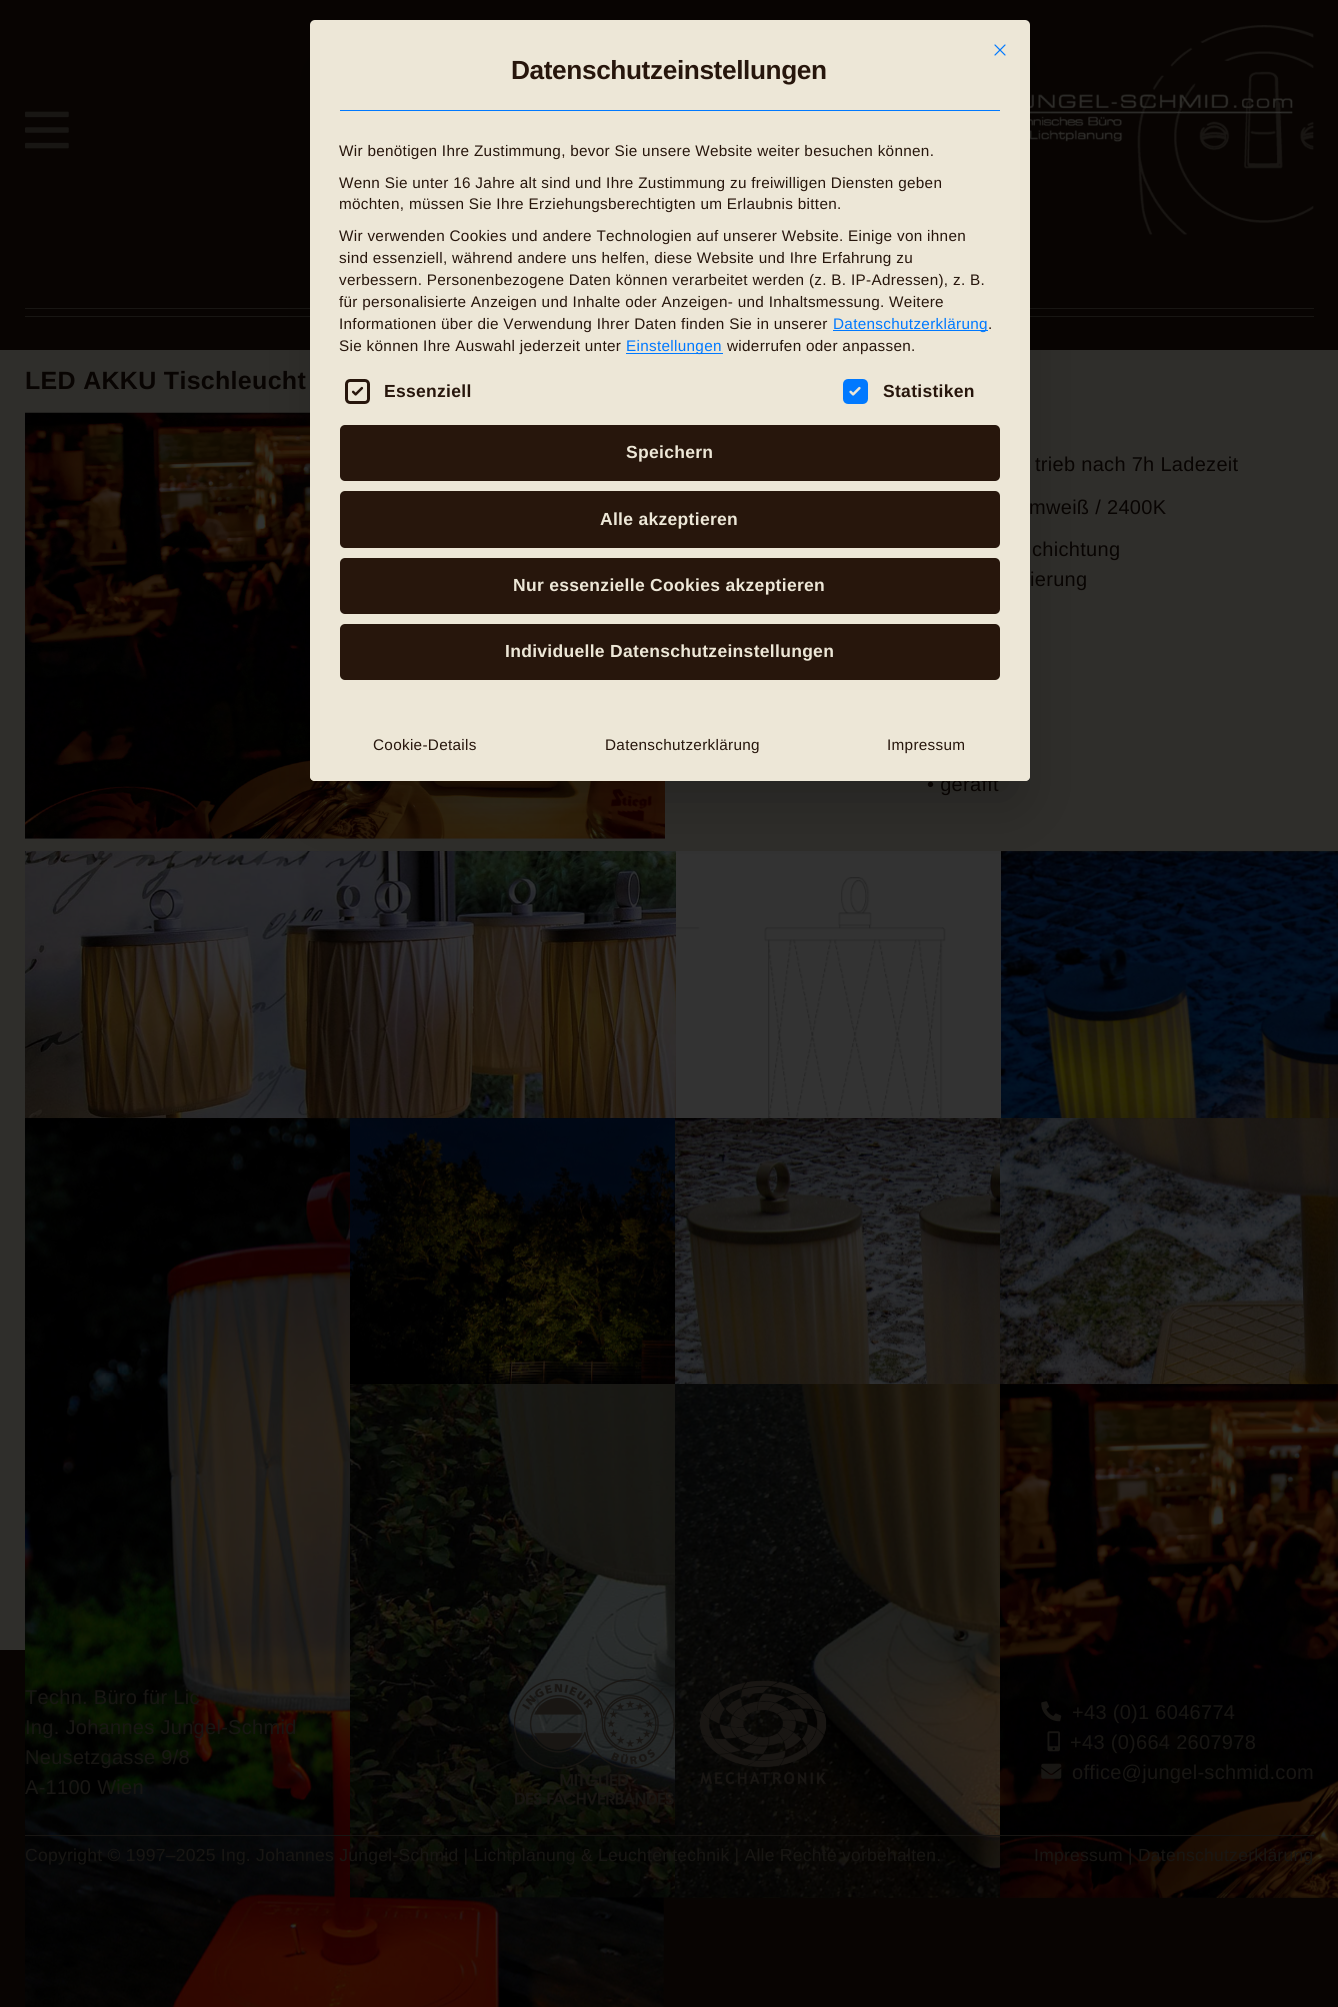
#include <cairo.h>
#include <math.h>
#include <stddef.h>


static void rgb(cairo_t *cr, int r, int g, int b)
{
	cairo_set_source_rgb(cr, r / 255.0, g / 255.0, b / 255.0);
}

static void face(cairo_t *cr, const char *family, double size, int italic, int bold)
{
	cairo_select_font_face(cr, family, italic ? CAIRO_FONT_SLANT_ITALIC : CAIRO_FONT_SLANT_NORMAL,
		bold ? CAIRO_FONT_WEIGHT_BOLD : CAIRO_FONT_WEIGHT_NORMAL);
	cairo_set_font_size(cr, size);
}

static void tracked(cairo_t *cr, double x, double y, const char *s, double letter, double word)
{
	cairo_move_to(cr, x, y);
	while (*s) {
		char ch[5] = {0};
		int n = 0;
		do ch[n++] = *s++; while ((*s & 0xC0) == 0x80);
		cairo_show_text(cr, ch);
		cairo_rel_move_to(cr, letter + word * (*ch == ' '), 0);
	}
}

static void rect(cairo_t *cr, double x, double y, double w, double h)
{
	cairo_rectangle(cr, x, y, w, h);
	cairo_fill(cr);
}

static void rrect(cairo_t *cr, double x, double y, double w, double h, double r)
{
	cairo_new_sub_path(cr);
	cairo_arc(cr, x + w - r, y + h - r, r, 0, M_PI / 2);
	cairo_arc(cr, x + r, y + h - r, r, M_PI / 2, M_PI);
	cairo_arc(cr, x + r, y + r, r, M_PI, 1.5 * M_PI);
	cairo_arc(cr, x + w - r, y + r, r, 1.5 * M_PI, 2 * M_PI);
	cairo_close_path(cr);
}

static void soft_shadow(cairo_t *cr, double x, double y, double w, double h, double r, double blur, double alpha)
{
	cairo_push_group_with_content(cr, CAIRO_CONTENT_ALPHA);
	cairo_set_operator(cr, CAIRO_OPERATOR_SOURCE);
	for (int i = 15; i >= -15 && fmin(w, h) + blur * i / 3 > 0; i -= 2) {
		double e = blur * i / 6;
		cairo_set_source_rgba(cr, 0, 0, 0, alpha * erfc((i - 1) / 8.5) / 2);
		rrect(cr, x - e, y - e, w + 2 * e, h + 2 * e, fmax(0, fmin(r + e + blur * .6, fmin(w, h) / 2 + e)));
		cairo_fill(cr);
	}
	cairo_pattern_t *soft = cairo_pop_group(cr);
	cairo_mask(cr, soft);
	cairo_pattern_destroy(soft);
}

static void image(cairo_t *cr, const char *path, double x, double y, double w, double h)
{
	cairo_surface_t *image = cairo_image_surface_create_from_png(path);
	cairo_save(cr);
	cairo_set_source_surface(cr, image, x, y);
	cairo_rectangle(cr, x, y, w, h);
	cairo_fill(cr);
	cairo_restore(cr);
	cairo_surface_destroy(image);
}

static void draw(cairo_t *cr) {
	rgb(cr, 8, 4, 2);
	cairo_paint(cr);
	rgb(cr, 47, 46, 43);
	rect(cr, 0, 350, 1338, 1300);
	image(cr, "image3.png", 1030, 25, 284, 210);
	rgb(cr, 24, 22, 19);
	rect(cr, 25, 308, 285, 1);
	rect(cr, 25, 316, 285, 1);
	rect(cr, 1030, 308, 284, 1);
	rect(cr, 1030, 316, 284, 1);
	image(cr, "image4.png", 25, 412, 640, 427);
	image(cr, "image5.png", 25, 851, 651, 267);
	image(cr, "image6.png", 676, 851, 325, 267);
	image(cr, "image7.png", 1001, 851, 337, 267);
	rgb(cr, 0, 0, 0);
	soft_shadow(cr, 325, 66, 690, 732, 0, 31, 0.25);
	face(cr, "Liberation Sans", 20, 0, 0);
	rgb(cr, 8, 4, 2);
	tracked(cr, 927, 791, "• gerafft", 0.3, 0);
	rgb(cr, 237, 231, 215);
	rrect(cr, 310, 20, 720, 761, 5);
	cairo_fill(cr);
	cairo_new_path(cr);
	cairo_move_to(cr, 995, 55);
	cairo_line_to(cr, 1005, 45);
	cairo_move_to(cr, 995, 45);
	cairo_line_to(cr, 1005, 55);
	rgb(cr, 0, 121, 255);
	cairo_set_line_width(cr, 1.2);
	cairo_set_line_cap(cr, CAIRO_LINE_CAP_ROUND);
	cairo_set_line_join(cr, CAIRO_LINE_JOIN_ROUND);
	cairo_stroke(cr);
	rect(cr, 340, 110, 660, 1);
	face(cr, "Liberation Sans", 26.25, 0, 1);
	rgb(cr, 39, 22, 12);
	tracked(cr, 511, 79, "Datenschutzeinstellungen", -0.4, 0);
	face(cr, "Liberation Sans", 15.3, 0, 0);
	tracked(cr, 339, 156, "Wir benötigen Ihre Zustimmung, bevor Sie unsere Website weiter besuchen können.", 0.3, 0);
	tracked(cr, 339, 188, "Wenn Sie unter 16 Jahre alt sind und Ihre Zustimmung zu freiwilligen Diensten geben", 0.3, 0);
	tracked(cr, 339, 209, "möchten, müssen Sie Ihre Erziehungsberechtigten um Erlaubnis bitten.", 0.3, 0);
	tracked(cr, 339, 241, "Wir verwenden Cookies und andere Technologien auf unserer Website. Einige von ihnen", 0.3, 0);
	tracked(cr, 339, 263, "sind essenziell, während andere uns helfen, diese Website und Ihre Erfahrung zu", 0.3, 0);
	tracked(cr, 339, 285, "verbessern. Personenbezogene Daten können verarbeitet werden (z. B. IP-Adressen), z. B.", 0.3, 0);
	tracked(cr, 339, 307, "für personalisierte Anzeigen und Inhalte oder Anzeigen- und Inhaltsmessung. Weitere", 0.3, 0);
	tracked(cr, 339, 329, "Informationen über die Verwendung Ihrer Daten finden Sie in unserer", 0.3, 0);
	rgb(cr, 0, 121, 255);
	rect(cr, 833, 330, 155, 1);
	tracked(cr, 833, 329, "Datenschutzerklärung", 0.3, 0);
	rgb(cr, 39, 22, 12);
	tracked(cr, 988, 329, ".", 0.3, 0);
	tracked(cr, 339, 351, "Sie können Ihre Auswahl jederzeit unter", 0.3, 0);
	rgb(cr, 0, 121, 255);
	rect(cr, 626, 353, 97, 1);
	tracked(cr, 626, 351, "Einstellungen", 0.3, 0);
	rgb(cr, 39, 22, 12);
	tracked(cr, 727, 351, "widerrufen oder anpassen.", 0.3, 0);
	rrect(cr, 346.5, 380.5, 22, 22, 3.5);
	cairo_set_line_width(cr, 3);
	cairo_set_line_cap(cr, CAIRO_LINE_CAP_BUTT);
	cairo_set_line_join(cr, CAIRO_LINE_JOIN_MITER);
	cairo_stroke(cr);
	image(cr, "image0.png", 351, 386, 13, 10);
	face(cr, "Liberation Sans", 17.5, 0, 1);
	tracked(cr, 384, 397, "Essenziell", 0.3, 0);
	rgb(cr, 0, 121, 255);
	rrect(cr, 844.5, 380.5, 22, 22, 3.5);
	cairo_fill_preserve(cr);
	cairo_stroke(cr);
	image(cr, "image1.png", 849, 386, 12, 10);
	rgb(cr, 39, 22, 12);
	tracked(cr, 883, 397, "Statistiken", 0.3, 0);
	rrect(cr, 340, 425, 660, 56, 5);
	cairo_fill(cr);
	rgb(cr, 237, 231, 215);
	tracked(cr, 626, 458, "Speichern", 0.3, 0);
	rgb(cr, 39, 22, 12);
	rrect(cr, 340, 491, 660, 57, 5);
	cairo_fill(cr);
	rgb(cr, 237, 231, 215);
	tracked(cr, 600, 525, "Alle akzeptieren", 0.3, 0);
	rgb(cr, 39, 22, 12);
	rrect(cr, 340, 558, 660, 56, 5);
	cairo_fill(cr);
	rgb(cr, 237, 231, 215);
	tracked(cr, 513, 591, "Nur essenzielle Cookies akzeptieren", 0.3, 0);
	rgb(cr, 39, 22, 12);
	rrect(cr, 340, 624, 660, 56, 5);
	cairo_fill(cr);
	rgb(cr, 237, 231, 215);
	tracked(cr, 505, 657, "Individuelle Datenschutzeinstellungen", 0.3, 0);
	cairo_new_path(cr);
	cairo_move_to(cr, 310, 710);
	cairo_line_to(cr, 1030, 710);
	cairo_line_to(cr, 1030, 776);
	cairo_curve_to(cr, 1030, 779, 1028, 781, 1025, 781);
	cairo_line_to(cr, 315, 781);
	cairo_curve_to(cr, 312, 781, 310, 779, 310, 776);
	cairo_close_path(cr);
	cairo_fill(cr);
	face(cr, "Liberation Sans", 15.3, 0, 0);
	rgb(cr, 39, 22, 12);
	tracked(cr, 373, 750, "Cookie-Details", 0.3, 0);
	tracked(cr, 605, 750, "Datenschutzerklärung", 0.3, 0);
	tracked(cr, 887, 750, "Impressum", 0.3, 0);
	image(cr, "image2.png", 25, 111, 44, 38);
	face(cr, "Liberation Sans", 25, 0, 1);
	rgb(cr, 8, 4, 2);
	tracked(cr, 25, 389, "LED AKKU Tischleucht", 0.3, 0);
	face(cr, "Liberation Sans", 20, 0, 0);
	tracked(cr, 1035, 471, "trieb nach 7h Ladezeit", 0.3, 0);
	tracked(cr, 1029, 514, "mweiß / 2400K", 0.3, 0);
	tracked(cr, 1032, 556, "chichtung", 0.3, 0);
	tracked(cr, 1030, 586, "ierung", 0.3, 0);
	image(cr, "image8.png", 25, 1118, 639, 889);
	image(cr, "image9.png", 350, 1118, 325, 266);
	image(cr, "image10.png", 675, 1118, 325, 266);
	image(cr, "image11.png", 1000, 1118, 338, 266);
	image(cr, "image12.png", 350, 1384, 639, 514);
	image(cr, "image13.png", 675, 1384, 639, 514);
	image(cr, "image14.png", 1000, 1384, 338, 514);
	rgb(cr, 24, 22, 19);
	tracked(cr, 25, 1704, "Techn. Büro für Lic", 0.3, 0);
	tracked(cr, 25, 1734, "Ing. Johannes Jungel-Schmid", 0.3, 0);
	tracked(cr, 25, 1764, "Neusetzgasse 9/8", 0.3, 0);
	tracked(cr, 25, 1794, "A-1100 Wien", 0.3, 0);
	image(cr, "image15.png", 513, 1678, 314, 127);
	image(cr, "image16.png", 1041, 1701, 21, 21);
	tracked(cr, 1072, 1719, "+43 (0)1 6046774", 0.3, 0);
	image(cr, "image17.png", 1047, 1731, 13, 21);
	tracked(cr, 1070, 1749, "+43 (0)664 2607978", 0.3, 0);
	image(cr, "image18.png", 1041, 1763, 21, 16);
	tracked(cr, 1072, 1779, "office@jungel-schmid.com", 0.3, 0);
	rect(cr, 25, 1835, 1289, 1);
	face(cr, "Liberation Sans", 17.5, 0, 0);
	tracked(cr, 25, 1861, "Copyright © 1997–2025 Ing. Johannes Jungel-Schmid | Lichtplanung & Leuchtentechnik | Alle Rechte vorbehalten.", 0.26, 0);
	tracked(cr, 1034, 1861, "Impressum | Datenschutzerklärung", 0.26, 0);
}

int main(void) {
	cairo_surface_t *surface = cairo_image_surface_create(CAIRO_FORMAT_RGB24, 1338, 2007);
	cairo_t *cr = cairo_create(surface);
	cairo_font_options_t *options = cairo_font_options_create();
	cairo_font_options_set_hint_metrics(options, CAIRO_HINT_METRICS_OFF);
	cairo_font_options_set_hint_style(options, CAIRO_HINT_STYLE_NONE);
	cairo_set_font_options(cr, options);
	cairo_set_miter_limit(cr, 4);
	draw(cr);
	cairo_surface_write_to_png(surface, "render.png");
	cairo_font_options_destroy(options);
	cairo_destroy(cr);
	cairo_surface_destroy(surface);
	return 0;
}
